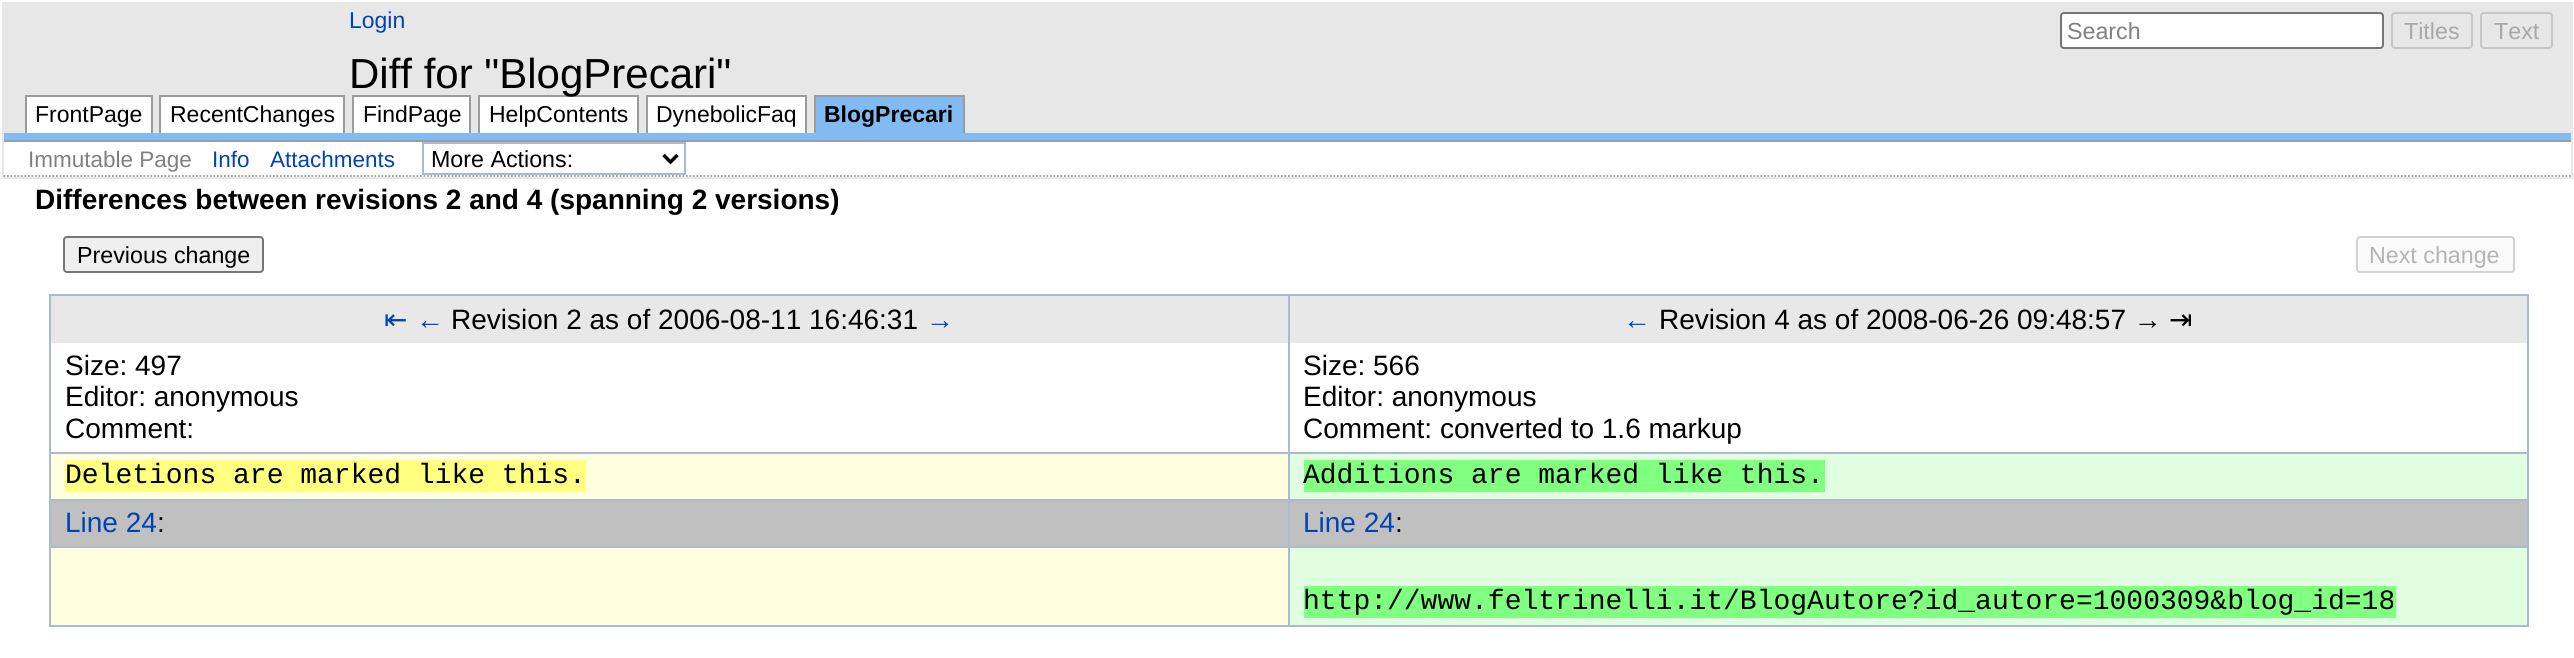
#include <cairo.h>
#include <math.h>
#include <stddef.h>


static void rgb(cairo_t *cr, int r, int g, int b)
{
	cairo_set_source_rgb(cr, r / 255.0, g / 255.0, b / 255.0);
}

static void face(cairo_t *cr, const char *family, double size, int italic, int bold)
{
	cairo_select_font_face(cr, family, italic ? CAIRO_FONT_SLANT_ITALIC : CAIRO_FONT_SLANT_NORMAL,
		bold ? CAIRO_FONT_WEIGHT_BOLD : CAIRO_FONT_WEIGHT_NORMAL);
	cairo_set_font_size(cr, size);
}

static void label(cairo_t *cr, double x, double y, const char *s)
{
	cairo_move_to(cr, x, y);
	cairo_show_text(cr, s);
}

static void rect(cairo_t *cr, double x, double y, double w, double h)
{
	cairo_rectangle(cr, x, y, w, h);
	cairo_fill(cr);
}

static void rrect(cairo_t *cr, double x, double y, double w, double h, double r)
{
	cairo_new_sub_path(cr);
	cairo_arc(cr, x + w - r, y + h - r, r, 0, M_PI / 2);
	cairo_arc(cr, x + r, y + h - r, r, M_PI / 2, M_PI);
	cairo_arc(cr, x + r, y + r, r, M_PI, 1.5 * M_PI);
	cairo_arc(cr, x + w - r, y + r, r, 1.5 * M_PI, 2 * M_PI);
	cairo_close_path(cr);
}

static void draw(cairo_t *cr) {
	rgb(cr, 255, 255, 255);
	cairo_paint(cr);
	rgb(cr, 231, 231, 231);
	rect(cr, 2, 2, 2571, 177);
	face(cr, "Liberation Sans", 23, 0, 0);
	rgb(cr, 0, 68, 179);
	label(cr, 349, 28, "Login");
	rgb(cr, 255, 255, 255);
	rrect(cr, 2061, 13, 322, 35, 3);
	cairo_fill_preserve(cr);
	rgb(cr, 118, 118, 118);
	cairo_stroke(cr);
	face(cr, "Liberation Sans", 23.25, 0, 0);
	rgb(cr, 128, 128, 128);
	label(cr, 2067, 39, "Search");
	rrect(cr, 2392, 13, 80, 35, 3);
	rgb(cr, 198, 198, 198);
	cairo_stroke(cr);
	rgb(cr, 168, 168, 168);
	label(cr, 2404, 39, "Titles");
	rrect(cr, 2481, 13, 71, 35, 3);
	rgb(cr, 198, 198, 198);
	cairo_stroke(cr);
	rgb(cr, 168, 168, 168);
	label(cr, 2494, 39, "Text");
	rgb(cr, 156, 156, 156);
	rect(cr, 352, 95, 119, 2);
	rect(cr, 469, 95, 2, 38);
	rect(cr, 352, 95, 2, 38);
	rect(cr, 478, 95, 161, 2);
	rect(cr, 637, 95, 2, 38);
	rect(cr, 478, 95, 2, 38);
	rect(cr, 646, 95, 161, 2);
	rect(cr, 646, 95, 2, 38);
	face(cr, "Liberation Sans", 42, 0, 0);
	rgb(cr, 0, 0, 0);
	label(cr, 349, 88, "Diff for \"BlogPrecari\"");
	rgb(cr, 255, 255, 255);
	rect(cr, 27, 97, 124, 36);
	rgb(cr, 156, 156, 156);
	rect(cr, 25, 95, 127, 2);
	rect(cr, 151, 95, 2, 38);
	rect(cr, 25, 95, 2, 38);
	face(cr, "Liberation Sans", 23, 0, 0);
	rgb(cr, 0, 0, 0);
	label(cr, 35, 122, "FrontPage");
	rgb(cr, 255, 255, 255);
	rect(cr, 161, 97, 182, 36);
	rgb(cr, 156, 156, 156);
	rect(cr, 159, 95, 186, 2);
	rect(cr, 343, 95, 2, 38);
	rect(cr, 159, 95, 2, 38);
	rgb(cr, 0, 0, 0);
	label(cr, 170, 122, "RecentChanges");
	rgb(cr, 255, 255, 255);
	rect(cr, 354, 97, 115, 36);
	rgb(cr, 0, 0, 0);
	label(cr, 363, 122, "FindPage");
	rgb(cr, 255, 255, 255);
	rect(cr, 480, 97, 157, 36);
	rgb(cr, 0, 0, 0);
	label(cr, 489, 122, "HelpContents");
	rgb(cr, 255, 255, 255);
	rect(cr, 648, 97, 157, 36);
	rgb(cr, 156, 156, 156);
	rect(cr, 805, 95, 2, 38);
	rgb(cr, 0, 0, 0);
	label(cr, 656, 122, "DynebolicFaq");
	rgb(cr, 129, 187, 242);
	rect(cr, 816, 97, 147, 36);
	rgb(cr, 156, 156, 156);
	rect(cr, 814, 95, 150, 2);
	rect(cr, 963, 95, 2, 38);
	rect(cr, 814, 95, 2, 38);
	face(cr, "Liberation Sans", 23, 0, 1);
	rgb(cr, 0, 0, 0);
	label(cr, 824, 122, "BlogPrecari");
	rgb(cr, 129, 187, 242);
	rect(cr, 4, 133, 2567, 7);
	rgb(cr, 156, 156, 156);
	rect(cr, 4, 140, 2567, 2);
	rgb(cr, 255, 255, 255);
	rect(cr, 4, 142, 2567, 35);
	cairo_new_path(cr);
	cairo_move_to(cr, 3.5, 176);
	cairo_line_to(cr, 2571, 176);
	rgb(cr, 156, 156, 156);
	cairo_set_line_width(cr, 1.8);
	cairo_set_dash(cr, (double[]){1.75, 1.75}, 2, 0);
	cairo_stroke(cr);
	face(cr, "Liberation Sans", 22.5, 0, 0);
	rgb(cr, 128, 128, 128);
	label(cr, 28, 167, "Immutable Page");
	rgb(cr, 0, 68, 179);
	label(cr, 212, 167, "Info");
	label(cr, 270, 167, "Attachments");
	cairo_rectangle(cr, 423, 143, 262, 31);
	rgb(cr, 173, 185, 204);
	cairo_set_line_width(cr, 2);
	cairo_set_dash(cr, NULL, 0, 0);
	cairo_stroke(cr);
	cairo_new_path(cr);
	cairo_move_to(cr, 663.5, 155);
	cairo_line_to(cr, 670.5, 162);
	cairo_line_to(cr, 677.5, 155);
	rgb(cr, 0, 0, 0);
	cairo_set_line_width(cr, 3.5);
	cairo_stroke(cr);
	face(cr, "Liberation Sans", 23.25, 0, 0);
	label(cr, 431, 167, "More Actions:");
	face(cr, "Liberation Sans", 28, 0, 1);
	label(cr, 35, 209, "Differences between revisions 2 and 4 (spanning 2 versions)");
	rgb(cr, 239, 239, 239);
	rrect(cr, 64, 237, 199, 35, 3);
	cairo_fill_preserve(cr);
	rgb(cr, 118, 118, 118);
	cairo_set_line_width(cr, 2);
	cairo_stroke(cr);
	face(cr, "Liberation Sans", 23.25, 0, 0);
	rgb(cr, 0, 0, 0);
	label(cr, 77, 263, "Previous change");
	rgb(cr, 250, 250, 250);
	rrect(cr, 2357, 237, 157, 35, 3);
	cairo_fill_preserve(cr);
	rgb(cr, 210, 210, 210);
	cairo_stroke(cr);
	rgb(cr, 180, 180, 180);
	label(cr, 2369, 263, "Next change");
	rgb(cr, 173, 185, 204);
	rect(cr, 1288, 294, 1241, 2);
	rect(cr, 1288, 452, 1241, 2);
	rect(cr, 1288, 499, 1241, 2);
	rgb(cr, 192, 192, 192);
	rect(cr, 51, 501, 2476, 45);
	rgb(cr, 173, 185, 204);
	rect(cr, 1288, 546, 1241, 2);
	rect(cr, 2527, 546, 2, 81);
	rect(cr, 1288, 625, 1241, 2);
	rect(cr, 1288, 546, 2, 81);
	rect(cr, 49, 546, 1241, 2);
	rect(cr, 1288, 499, 2, 49);
	rect(cr, 49, 499, 1241, 2);
	rect(cr, 1288, 452, 2, 49);
	rect(cr, 49, 452, 1241, 2);
	rect(cr, 1288, 294, 2, 159);
	rect(cr, 49, 294, 1241, 2);
	rect(cr, 49, 625, 1241, 2);
	rect(cr, 49, 546, 2, 81);
	rect(cr, 49, 499, 2, 49);
	rect(cr, 49, 452, 2, 49);
	rect(cr, 49, 294, 2, 159);
	rgb(cr, 232, 232, 232);
	rect(cr, 51, 296, 1237, 47);
	face(cr, "DejaVu Sans", 28, 0, 0);
	rgb(cr, 0, 68, 179);
	label(cr, 384, 329, "⇤");
	face(cr, "Liberation Sans", 28, 0, 0);
	label(cr, 416, 329, "←");
	rgb(cr, 0, 0, 0);
	label(cr, 451, 329, "Revision 2 as of 2006-08-11 16:46:31");
	rgb(cr, 0, 68, 179);
	label(cr, 926, 329, "→");
	rgb(cr, 0, 0, 0);
	label(cr, 65, 375, "Size: 497");
	label(cr, 65, 406, "Editor: anonymous");
	label(cr, 65, 438, "Comment:");
	rgb(cr, 173, 185, 204);
	rect(cr, 2527, 499, 2, 49);
	rect(cr, 2527, 452, 2, 49);
	rect(cr, 2527, 294, 2, 159);
	rgb(cr, 232, 232, 232);
	rect(cr, 1290, 296, 1237, 47);
	rgb(cr, 0, 68, 179);
	label(cr, 1623, 329, "←");
	rgb(cr, 0, 0, 0);
	label(cr, 1659, 329, "Revision 4 as of 2008-06-26 09:48:57 →");
	face(cr, "DejaVu Sans", 28, 0, 0);
	label(cr, 2169, 329, "⇥");
	face(cr, "Liberation Sans", 28, 0, 0);
	label(cr, 1303, 375, "Size: 566");
	label(cr, 1303, 406, "Editor: anonymous");
	label(cr, 1303, 438, "Comment: converted to 1.6 markup");
	rgb(cr, 255, 255, 224);
	rect(cr, 51, 454, 1237, 45);
	rgb(cr, 255, 255, 128);
	rect(cr, 65, 460, 521, 32);
	face(cr, "Liberation Mono", 28, 0, 0);
	rgb(cr, 0, 0, 0);
	label(cr, 65, 483, "Deletions are marked like this.");
	rgb(cr, 224, 255, 224);
	rect(cr, 1290, 454, 1237, 45);
	rgb(cr, 128, 255, 128);
	rect(cr, 1304, 460, 521, 32);
	rgb(cr, 0, 0, 0);
	label(cr, 1303, 483, "Additions are marked like this.");
	face(cr, "Liberation Sans", 28, 0, 0);
	rgb(cr, 0, 68, 179);
	label(cr, 65, 532, "Line 24");
	rgb(cr, 0, 0, 0);
	label(cr, 157, 532, ":");
	rgb(cr, 0, 68, 179);
	label(cr, 1303, 532, "Line 24");
	rgb(cr, 0, 0, 0);
	label(cr, 1395, 532, ":");
	rgb(cr, 255, 255, 224);
	rect(cr, 51, 548, 1237, 77);
	rgb(cr, 224, 255, 224);
	rect(cr, 1290, 548, 1237, 77);
	rgb(cr, 128, 255, 128);
	rect(cr, 1304, 586, 1092, 32);
	face(cr, "Liberation Mono", 28, 0, 0);
	rgb(cr, 0, 0, 0);
	label(cr, 1303, 609, "http://www.feltrinelli.it/BlogAutore?id_autore=1000309&blog_id=18");
}

int main(void) {
	cairo_surface_t *surface = cairo_image_surface_create(CAIRO_FORMAT_RGB24, 2574, 658);
	cairo_t *cr = cairo_create(surface);
	cairo_font_options_t *options = cairo_font_options_create();
	cairo_font_options_set_hint_metrics(options, CAIRO_HINT_METRICS_OFF);
	cairo_font_options_set_hint_style(options, CAIRO_HINT_STYLE_NONE);
	cairo_set_font_options(cr, options);
	cairo_set_miter_limit(cr, 4);
	draw(cr);
	cairo_surface_write_to_png(surface, "render.png");
	cairo_font_options_destroy(options);
	cairo_destroy(cr);
	cairo_surface_destroy(surface);
	return 0;
}
